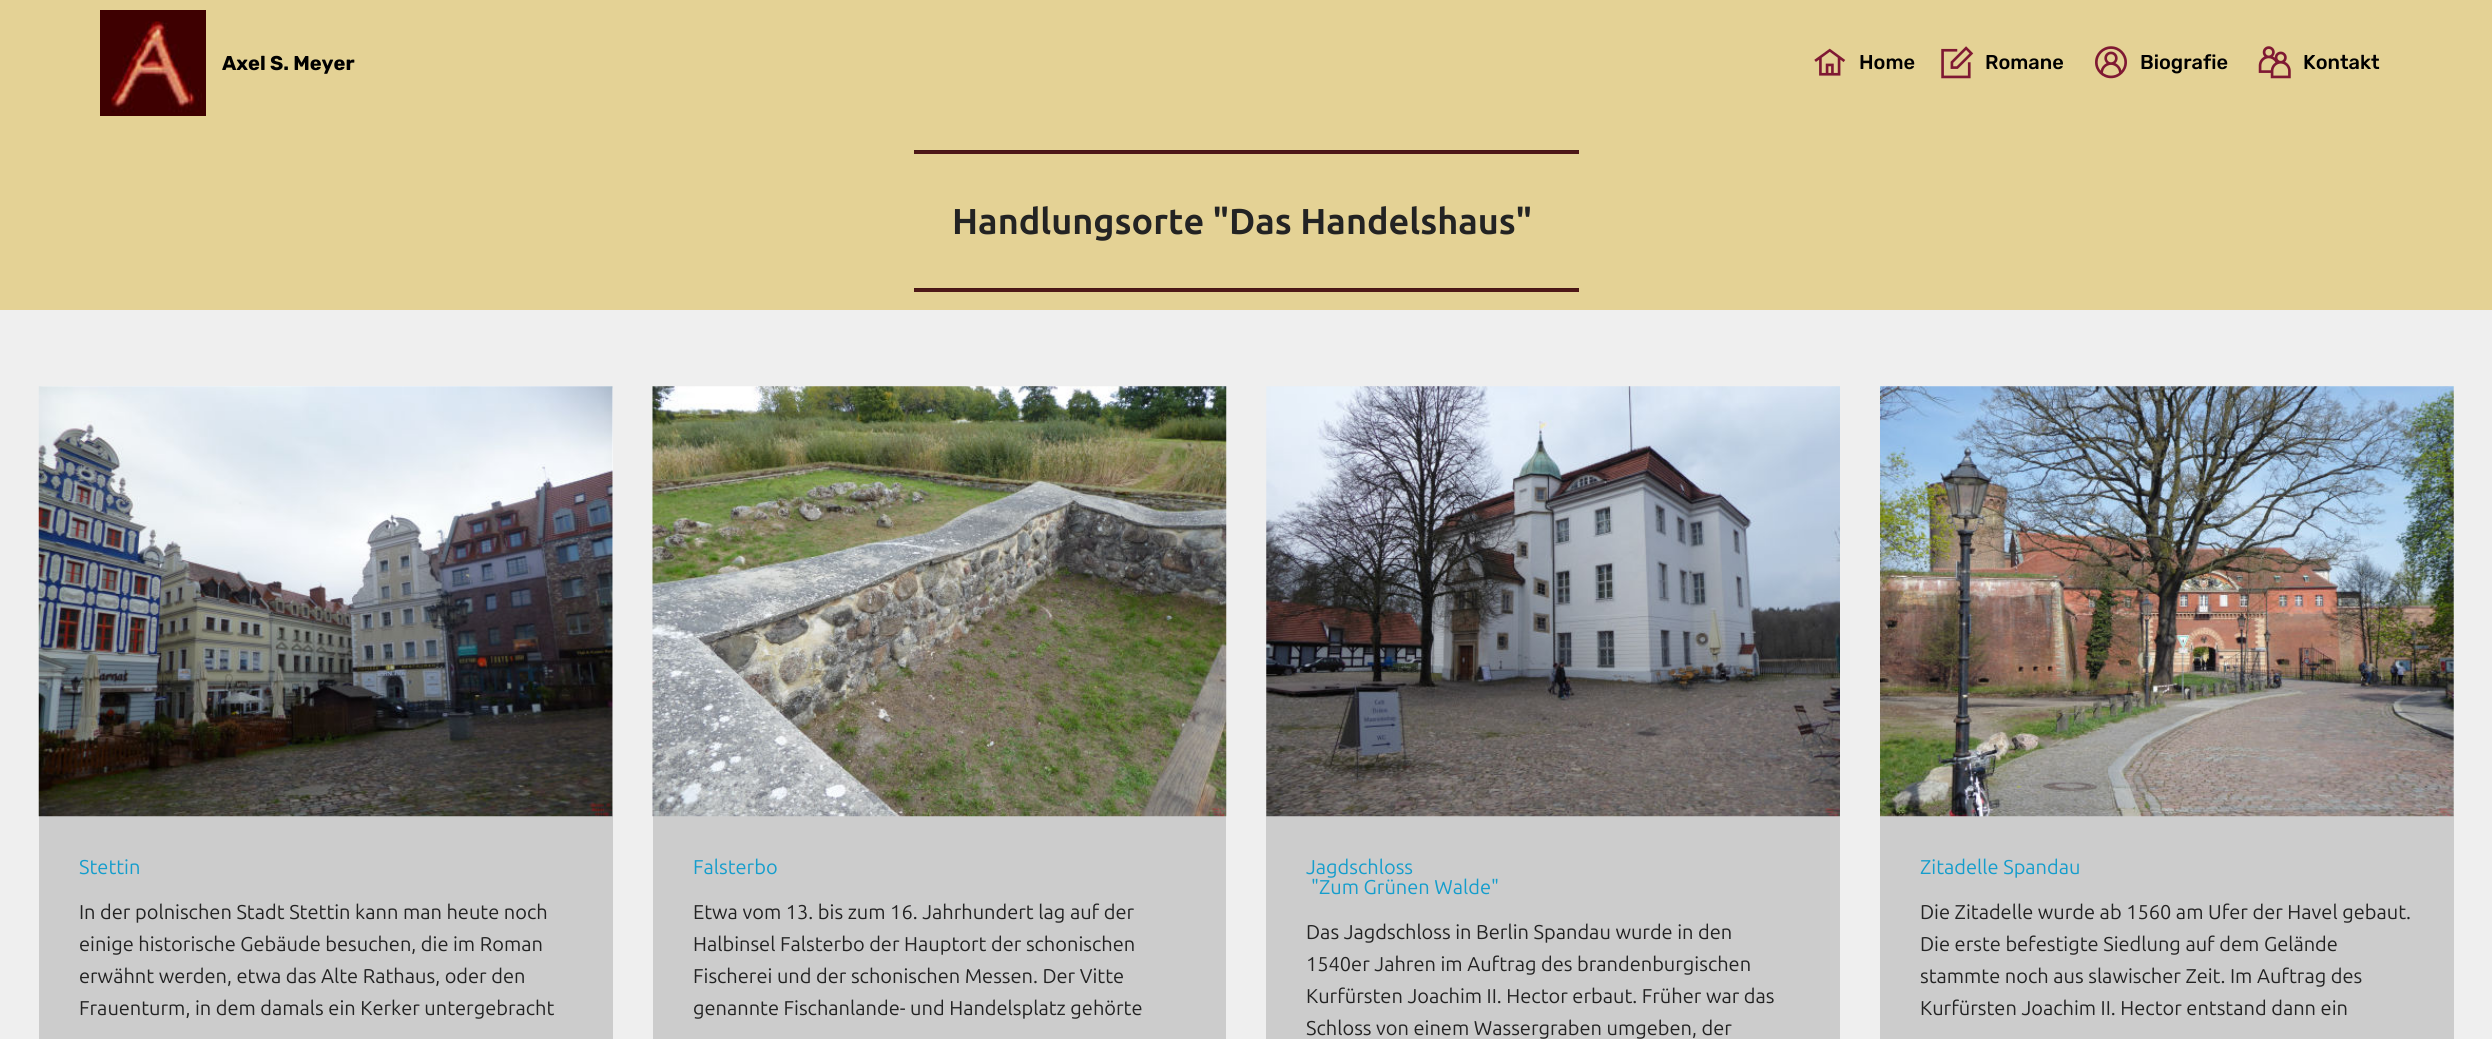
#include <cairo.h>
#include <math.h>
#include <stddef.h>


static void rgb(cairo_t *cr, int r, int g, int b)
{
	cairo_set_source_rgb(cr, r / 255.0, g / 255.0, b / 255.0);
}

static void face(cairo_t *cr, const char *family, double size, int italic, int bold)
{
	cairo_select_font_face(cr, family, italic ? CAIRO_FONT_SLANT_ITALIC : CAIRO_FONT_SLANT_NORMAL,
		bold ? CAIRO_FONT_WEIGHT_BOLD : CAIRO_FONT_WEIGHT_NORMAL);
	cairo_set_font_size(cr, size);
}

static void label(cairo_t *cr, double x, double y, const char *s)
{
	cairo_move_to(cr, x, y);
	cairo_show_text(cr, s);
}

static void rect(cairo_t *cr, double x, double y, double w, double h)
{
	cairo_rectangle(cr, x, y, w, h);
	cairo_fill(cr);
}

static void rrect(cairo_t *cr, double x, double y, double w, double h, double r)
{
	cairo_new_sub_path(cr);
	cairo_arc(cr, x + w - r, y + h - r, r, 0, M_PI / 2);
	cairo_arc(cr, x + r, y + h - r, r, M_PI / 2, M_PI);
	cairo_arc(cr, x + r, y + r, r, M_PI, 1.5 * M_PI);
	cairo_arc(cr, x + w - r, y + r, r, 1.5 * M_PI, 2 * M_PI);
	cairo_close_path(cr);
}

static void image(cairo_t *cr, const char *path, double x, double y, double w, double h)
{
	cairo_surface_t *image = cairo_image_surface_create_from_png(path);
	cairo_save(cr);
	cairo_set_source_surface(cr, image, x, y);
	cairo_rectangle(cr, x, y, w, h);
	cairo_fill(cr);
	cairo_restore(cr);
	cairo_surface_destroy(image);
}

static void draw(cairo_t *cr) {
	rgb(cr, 228, 210, 149);
	cairo_paint(cr);
	image(cr, "image0.png", 100, 10, 106, 106);
	face(cr, "Rubik", 20, 0, 1);
	rgb(cr, 0, 0, 0);
	label(cr, 222, 70, "Axel S. Meyer");
	image(cr, "image1.png", 1814, 48, 32, 28);
	face(cr, "Rubik Medium", 20, 0, 0);
	label(cr, 1859, 69, "Home");
	image(cr, "image2.png", 1941, 46, 33, 33);
	label(cr, 1985, 69, "Romane");
	image(cr, "image3.png", 2095, 46, 32, 33);
	label(cr, 2140, 69, "Biografie");
	image(cr, "image4.png", 2258, 46, 33, 33);
	label(cr, 2303, 69, "Kontakt");
	rgb(cr, 78, 24, 24);
	rect(cr, 914, 151, 665, 3);
	rgb(cr, 70, 22, 22);
	rect(cr, 914, 150, 665, 1);
	face(cr, "Ubuntu", 36, 0, 1);
	rgb(cr, 35, 35, 35);
	label(cr, 952, 234, "Handlungsorte \"Das Handelshaus\"");
	rgb(cr, 78, 24, 24);
	rect(cr, 914, 289, 665, 3);
	rgb(cr, 70, 22, 22);
	rect(cr, 914, 288, 665, 1);
	rgb(cr, 239, 239, 239);
	rect(cr, 0, 310, 2492, 729);
	rgb(cr, 255, 255, 255);
	rrect(cr, 39, 386, 574, 430, 4);
	cairo_fill(cr);
	rgb(cr, 204, 204, 204);
	rect(cr, 39, 816, 574, 223);
	image(cr, "image5.png", 38, 386, 575, 431);
	face(cr, "Ubuntu", 20, 0, 0);
	rgb(cr, 20, 157, 204);
	label(cr, 79, 874, "Stettin");
	rgb(cr, 35, 35, 35);
	label(cr, 79, 919, "In der polnischen Stadt Stettin kann man heute noch");
	label(cr, 79, 951, "einige historische Gebäude besuchen, die im Roman");
	label(cr, 79, 983, "erwähnt werden, etwa das Alte Rathaus, oder den");
	label(cr, 79, 1015, "Frauenturm, in dem damals ein Kerker untergebracht");
	rgb(cr, 204, 204, 204);
	rect(cr, 653, 816, 573, 223);
	image(cr, "image6.png", 652, 386, 575, 431);
	rgb(cr, 20, 157, 204);
	label(cr, 693, 874, "Falsterbo");
	rgb(cr, 35, 35, 35);
	label(cr, 693, 919, "Etwa vom 13. bis zum 16. Jahrhundert lag auf der");
	label(cr, 693, 951, "Halbinsel Falsterbo der Hauptort der schonischen");
	label(cr, 693, 983, "Fischerei und der schonischen Messen. Der Vitte");
	label(cr, 693, 1015, "genannte Fischanlande- und Handelsplatz gehörte");
	rgb(cr, 204, 204, 204);
	rect(cr, 1266, 816, 574, 223);
	image(cr, "image7.png", 1266, 386, 574, 431);
	rgb(cr, 20, 157, 204);
	label(cr, 1306, 874, "Jagdschloss");
	label(cr, 1311, 894, "\"Zum Grünen Walde\"");
	rgb(cr, 35, 35, 35);
	label(cr, 1306, 939, "Das Jagdschloss in Berlin Spandau wurde in den");
	label(cr, 1306, 971, "1540er Jahren im Auftrag des brandenburgischen");
	label(cr, 1306, 1003, "Kurfürsten Joachim II. Hector erbaut. Früher war das");
	label(cr, 1306, 1035, "Schloss von einem Wassergraben umgeben, der");
	rgb(cr, 204, 204, 204);
	rect(cr, 1880, 816, 574, 223);
	image(cr, "image8.png", 1880, 386, 574, 431);
	rgb(cr, 20, 157, 204);
	label(cr, 1920, 874, "Zitadelle Spandau");
	rgb(cr, 35, 35, 35);
	label(cr, 1920, 919, "Die Zitadelle wurde ab 1560 am Ufer der Havel gebaut.");
	label(cr, 1920, 951, "Die erste befestigte Siedlung auf dem Gelände");
	label(cr, 1920, 983, "stammte noch aus slawischer Zeit. Im Auftrag des");
	label(cr, 1920, 1015, "Kurfürsten Joachim II. Hector entstand dann ein");
}

int main(void) {
	cairo_surface_t *surface = cairo_image_surface_create(CAIRO_FORMAT_RGB24, 2492, 1039);
	cairo_t *cr = cairo_create(surface);
	cairo_font_options_t *options = cairo_font_options_create();
	cairo_font_options_set_hint_metrics(options, CAIRO_HINT_METRICS_OFF);
	cairo_font_options_set_hint_style(options, CAIRO_HINT_STYLE_NONE);
	cairo_set_font_options(cr, options);
	cairo_set_miter_limit(cr, 4);
	draw(cr);
	cairo_surface_write_to_png(surface, "render.png");
	cairo_font_options_destroy(options);
	cairo_destroy(cr);
	cairo_surface_destroy(surface);
	return 0;
}
